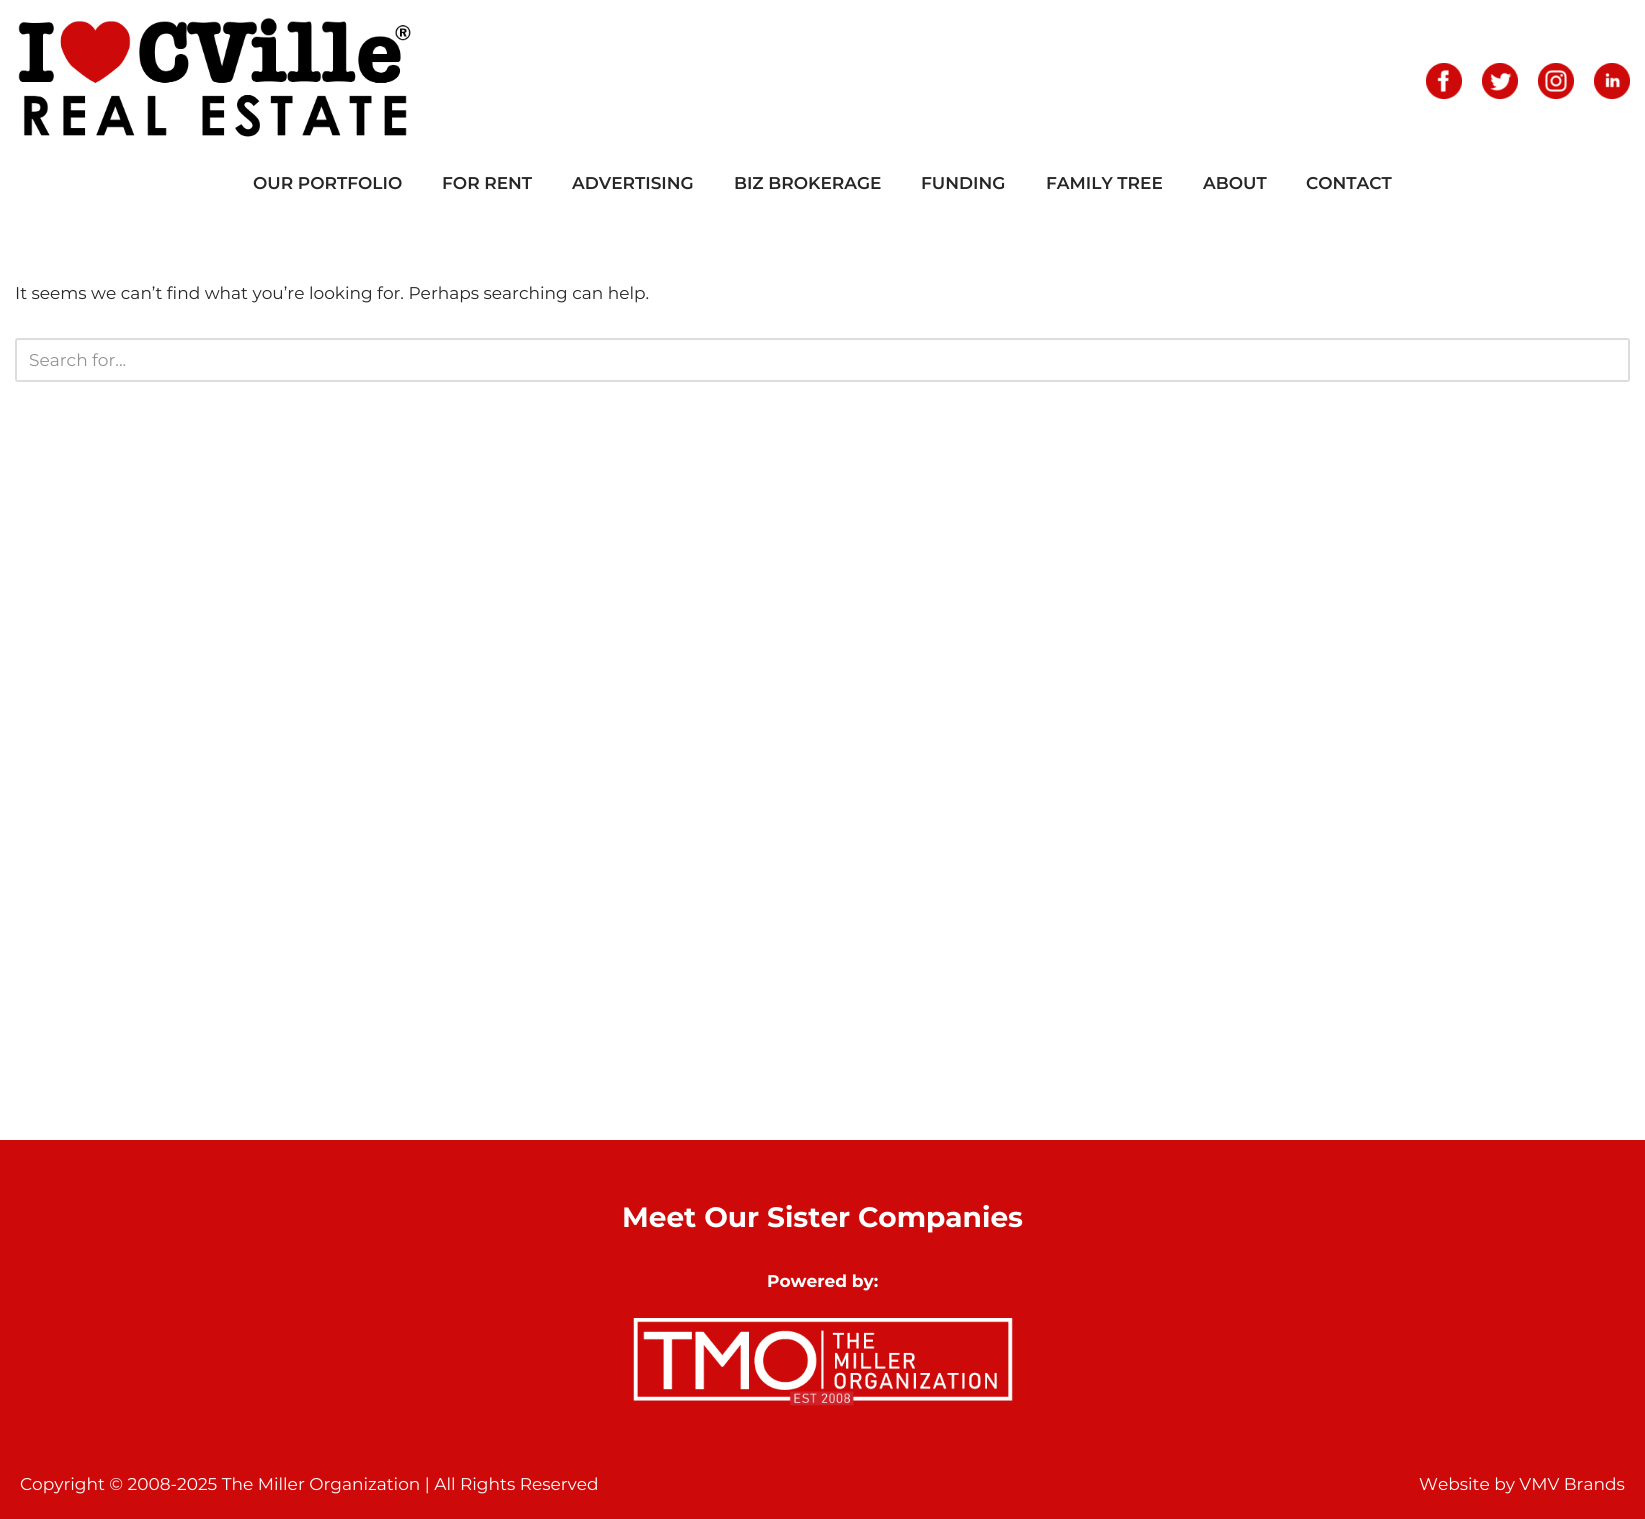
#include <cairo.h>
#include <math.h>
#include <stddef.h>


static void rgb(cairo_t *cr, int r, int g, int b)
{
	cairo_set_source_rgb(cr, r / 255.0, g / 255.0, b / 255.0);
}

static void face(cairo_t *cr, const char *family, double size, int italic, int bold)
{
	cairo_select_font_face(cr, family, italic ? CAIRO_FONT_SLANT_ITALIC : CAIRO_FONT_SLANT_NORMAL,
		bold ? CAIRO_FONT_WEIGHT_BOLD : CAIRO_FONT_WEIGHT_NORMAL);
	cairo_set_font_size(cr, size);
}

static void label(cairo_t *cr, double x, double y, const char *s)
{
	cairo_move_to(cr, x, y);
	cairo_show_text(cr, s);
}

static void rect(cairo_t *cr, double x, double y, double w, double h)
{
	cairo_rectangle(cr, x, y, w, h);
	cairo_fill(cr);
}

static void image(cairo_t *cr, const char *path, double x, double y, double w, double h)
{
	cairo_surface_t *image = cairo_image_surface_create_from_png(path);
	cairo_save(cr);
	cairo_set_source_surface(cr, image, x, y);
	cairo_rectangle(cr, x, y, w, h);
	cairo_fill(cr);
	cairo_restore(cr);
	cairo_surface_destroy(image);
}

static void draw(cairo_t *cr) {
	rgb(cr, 255, 255, 255);
	cairo_paint(cr);
	image(cr, "image0.png", 18, 18, 393, 119);
	image(cr, "image1.png", 1426, 63, 36, 36);
	image(cr, "image2.png", 1482, 63, 36, 36);
	image(cr, "image3.png", 1538, 63, 36, 36);
	image(cr, "image4.png", 1594, 63, 36, 36);
	face(cr, "Montserrat SemiBold", 17, 0, 0);
	rgb(cr, 39, 38, 38);
	label(cr, 253, 189, "OUR PORTFOLIO");
	label(cr, 442, 189, "FOR RENT");
	label(cr, 572, 189, "ADVERTISING");
	label(cr, 734, 189, "BIZ BROKERAGE");
	label(cr, 921, 189, "FUNDING");
	label(cr, 1046, 189, "FAMILY TREE");
	label(cr, 1203, 189, "ABOUT");
	label(cr, 1306, 189, "CONTACT");
	face(cr, "Montserrat", 17, 0, 0);
	label(cr, 15, 299, "It seems we can’t find what you’re looking for. Perhaps searching can help.");
	rgb(cr, 221, 221, 221);
	cairo_set_fill_rule(cr, CAIRO_FILL_RULE_EVEN_ODD);
	cairo_new_path(cr);
	cairo_move_to(cr, 18, 338);
	cairo_line_to(cr, 1585, 338);
	cairo_line_to(cr, 1585, 382);
	cairo_line_to(cr, 18, 382);
	cairo_curve_to(cr, 16, 382, 15, 381, 15, 379);
	cairo_line_to(cr, 15, 341);
	cairo_curve_to(cr, 15, 339, 16, 338, 18, 338);
	cairo_close_path(cr);
	cairo_move_to(cr, 18, 340);
	cairo_line_to(cr, 1585, 340);
	cairo_line_to(cr, 1585, 380);
	cairo_line_to(cr, 18, 380);
	cairo_line_to(cr, 17, 380);
	cairo_line_to(cr, 17, 341);
	cairo_close_path(cr);
	cairo_fill(cr);
	rgb(cr, 147, 147, 147);
	label(cr, 29, 366, "Search for...");
	rgb(cr, 221, 221, 221);
	cairo_new_path(cr);
	cairo_move_to(cr, 1585, 338);
	cairo_line_to(cr, 1627, 338);
	cairo_curve_to(cr, 1629, 338, 1630, 339, 1630, 341);
	cairo_line_to(cr, 1630, 379);
	cairo_curve_to(cr, 1630, 381, 1629, 382, 1627, 382);
	cairo_line_to(cr, 1585, 382);
	cairo_close_path(cr);
	cairo_move_to(cr, 1585, 340);
	cairo_line_to(cr, 1627, 340);
	cairo_curve_to(cr, 1628, 340, 1628, 340, 1628, 341);
	cairo_line_to(cr, 1628, 379);
	cairo_curve_to(cr, 1628, 380, 1628, 380, 1627, 380);
	cairo_line_to(cr, 1585, 380);
	cairo_close_path(cr);
	cairo_fill(cr);
	rgb(cr, 206, 9, 9);
	rect(cr, 0, 1140, 1645, 379);
	face(cr, "Montserrat", 28, 0, 1);
	rgb(cr, 255, 255, 255);
	label(cr, 622, 1227, "Meet Our Sister Companies");
	face(cr, "Montserrat", 17, 0, 1);
	label(cr, 767, 1287, "Powered by:");
	image(cr, "image5.png", 633, 1318, 380, 88);
	face(cr, "Montserrat", 17, 0, 0);
	label(cr, 20, 1490, "Copyright © 2008-2025 The Miller Organization | All Rights Reserved");
	label(cr, 1419, 1490, "Website by VMV Brands");
}

int main(void) {
	cairo_surface_t *surface = cairo_image_surface_create(CAIRO_FORMAT_RGB24, 1645, 1519);
	cairo_t *cr = cairo_create(surface);
	cairo_font_options_t *options = cairo_font_options_create();
	cairo_font_options_set_hint_metrics(options, CAIRO_HINT_METRICS_OFF);
	cairo_font_options_set_hint_style(options, CAIRO_HINT_STYLE_NONE);
	cairo_set_font_options(cr, options);
	cairo_set_miter_limit(cr, 4);
	draw(cr);
	cairo_surface_write_to_png(surface, "render.png");
	cairo_font_options_destroy(options);
	cairo_destroy(cr);
	cairo_surface_destroy(surface);
	return 0;
}
